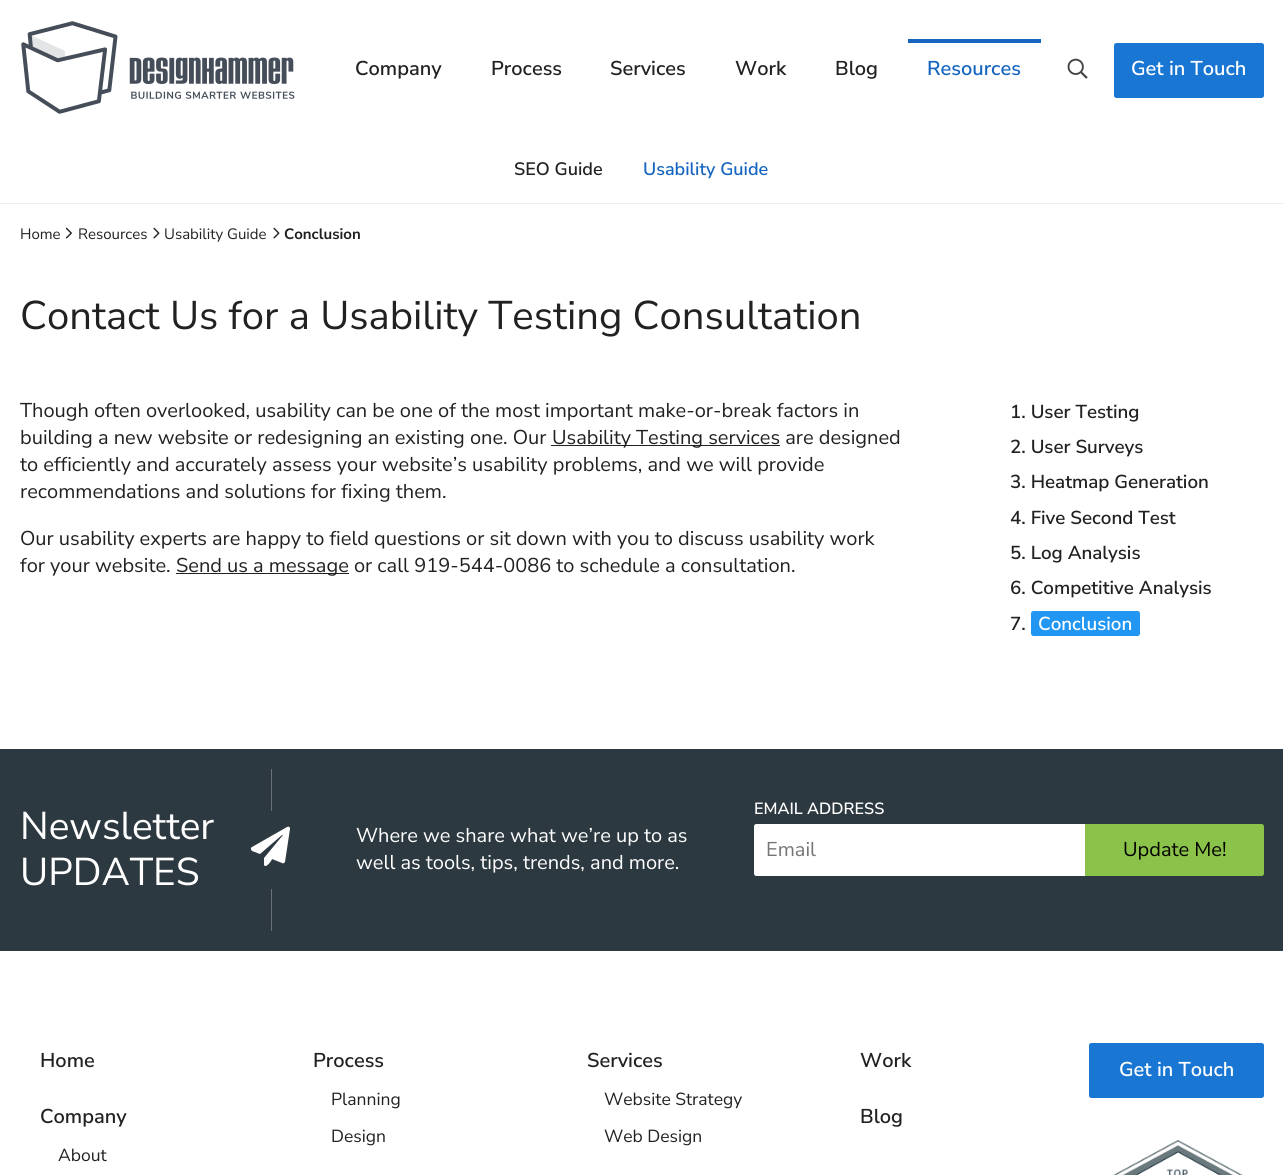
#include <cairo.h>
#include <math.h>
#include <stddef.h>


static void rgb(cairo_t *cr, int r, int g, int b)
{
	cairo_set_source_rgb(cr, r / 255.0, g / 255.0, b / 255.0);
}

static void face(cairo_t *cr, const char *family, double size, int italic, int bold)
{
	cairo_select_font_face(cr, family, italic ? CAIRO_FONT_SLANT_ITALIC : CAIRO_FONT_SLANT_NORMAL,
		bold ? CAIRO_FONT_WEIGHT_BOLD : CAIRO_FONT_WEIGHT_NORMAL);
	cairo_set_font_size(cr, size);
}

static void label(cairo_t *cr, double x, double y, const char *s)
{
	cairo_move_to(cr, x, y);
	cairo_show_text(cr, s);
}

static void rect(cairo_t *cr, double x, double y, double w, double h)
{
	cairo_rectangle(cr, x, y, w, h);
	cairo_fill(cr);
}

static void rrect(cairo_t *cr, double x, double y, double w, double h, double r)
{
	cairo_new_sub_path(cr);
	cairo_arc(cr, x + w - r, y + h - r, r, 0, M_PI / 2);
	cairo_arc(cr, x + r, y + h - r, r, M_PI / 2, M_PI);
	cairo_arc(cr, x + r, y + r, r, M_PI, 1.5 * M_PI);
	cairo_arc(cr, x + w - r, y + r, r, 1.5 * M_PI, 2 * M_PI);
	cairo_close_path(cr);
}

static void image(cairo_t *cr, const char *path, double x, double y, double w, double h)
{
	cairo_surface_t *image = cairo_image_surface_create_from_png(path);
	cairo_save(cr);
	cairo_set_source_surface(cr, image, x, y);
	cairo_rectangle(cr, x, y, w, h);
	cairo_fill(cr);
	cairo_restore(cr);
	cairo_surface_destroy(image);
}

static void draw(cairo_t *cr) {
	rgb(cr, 255, 255, 255);
	cairo_paint(cr);
	image(cr, "image0.png", 21, 21, 274, 93);
	face(cr, "Nunito Sans SemiBold", 20, 0, 0);
	rgb(cr, 33, 33, 33);
	label(cr, 355, 75, "Company");
	label(cr, 491, 75, "Process");
	label(cr, 610, 75, "Services");
	label(cr, 735, 75, "Work");
	label(cr, 835, 75, "Blog");
	rgb(cr, 21, 101, 192);
	rect(cr, 908, 39, 133, 4);
	label(cr, 927, 75, "Resources");
	image(cr, "image1.png", 1067, 58, 21, 21);
	rgb(cr, 25, 118, 210);
	rrect(cr, 1114, 43, 150, 55, 2.5);
	cairo_fill(cr);
	rgb(cr, 255, 255, 255);
	label(cr, 1131, 75, "Get in Touch");
	face(cr, "Nunito Sans SemiBold", 18, 0, 0);
	rgb(cr, 33, 33, 33);
	label(cr, 514, 175, "SEO Guide");
	rgb(cr, 21, 101, 192);
	label(cr, 643, 175, "Usability Guide");
	rgb(cr, 238, 238, 238);
	rect(cr, 0, 203, 1283, 1);
	face(cr, "Nunito Sans", 15, 0, 0);
	rgb(cr, 33, 33, 33);
	label(cr, 20, 239, "Home");
	image(cr, "image2.png", 65, 227, 7, 12);
	label(cr, 78, 239, "Resources");
	image(cr, "image3.png", 153, 227, 7, 12);
	label(cr, 164, 239, "Usability Guide");
	image(cr, "image3.png", 273, 227, 7, 12);
	face(cr, "Nunito Sans", 15, 0, 1);
	label(cr, 284, 239, "Conclusion");
	face(cr, "Nunito Sans", 40, 0, 0);
	label(cr, 20, 329, "Contact Us for a Usability Testing Consultation");
	face(cr, "Nunito Sans", 20, 0, 0);
	label(cr, 20, 417, "Though often overlooked, usability can be one of the most important make-or-break factors in");
	label(cr, 20, 444, "building a new website or redesigning an existing one. Our");
	rect(cr, 551, 445, 229, 1);
	label(cr, 552, 444, "Usability Testing services are designed");
	label(cr, 20, 471, "to efficiently and accurately assess your website’s usability problems, and we will provide");
	label(cr, 20, 498, "recommendations and solutions for fixing them.");
	label(cr, 20, 545, "Our usability experts are happy to field questions or sit down with you to discuss usability work");
	label(cr, 20, 572, "for your website.");
	rect(cr, 176, 573, 173, 1);
	label(cr, 176, 572, "Send us a message or call 919-544-0086 to schedule a consultation.");
	face(cr, "Nunito Sans SemiBold", 18.75, 0, 0);
	label(cr, 1010, 418, "1. User Testing");
	label(cr, 1010, 453, "2. User Surveys");
	label(cr, 1010, 488, "3. Heatmap Generation");
	label(cr, 1010, 524, "4. Five Second Test");
	label(cr, 1010, 559, "5. Log Analysis");
	label(cr, 1010, 594, "6. Competitive Analysis");
	label(cr, 1010, 630, "7.");
	rgb(cr, 33, 150, 243);
	rrect(cr, 1031, 611, 109, 25, 2.5);
	cairo_fill(cr);
	rgb(cr, 255, 255, 255);
	label(cr, 1038, 630, "Conclusion");
	rgb(cr, 45, 57, 64);
	rect(cr, 0, 749, 1283, 202);
	rgb(cr, 103, 112, 117);
	rect(cr, 271, 889, 1, 42);
	rect(cr, 271, 769, 1, 42);
	rgb(cr, 255, 255, 255);
	cairo_set_fill_rule(cr, CAIRO_FILL_RULE_EVEN_ODD);
	cairo_new_path(cr);
	cairo_move_to(cr, 287, 827);
	cairo_line_to(cr, 252, 847);
	cairo_curve_to(cr, 250, 848, 251, 850, 252, 851);
	cairo_line_to(cr, 260, 854);
	cairo_line_to(cr, 282, 835);
	cairo_line_to(cr, 283, 835);
	cairo_line_to(cr, 264, 858);
	cairo_line_to(cr, 264, 865);
	cairo_curve_to(cr, 266, 869, 272, 860, 272, 859);
	cairo_line_to(cr, 282, 863);
	cairo_curve_to(cr, 283, 864, 284, 863, 285, 862);
	cairo_line_to(cr, 290, 829);
	cairo_curve_to(cr, 290, 827, 289, 826, 287, 827);
	cairo_close_path(cr);
	cairo_fill(cr);
	face(cr, "Nunito Sans", 38.75, 0, 0);
	label(cr, 20, 839, "Newsletter");
	label(cr, 20, 885, "UPDATES");
	face(cr, "Nunito Sans", 20, 0, 0);
	label(cr, 356, 842, "Where we share what we’re up to as");
	label(cr, 356, 869, "well as tools, tips, trends, and more.");
	face(cr, "Nunito Sans SemiBold", 16.25, 0, 0);
	label(cr, 754, 814, "EMAIL ADDRESS");
	cairo_new_path(cr);
	cairo_move_to(cr, 756.5, 824);
	cairo_line_to(cr, 1085, 824);
	cairo_line_to(cr, 1085, 876);
	cairo_line_to(cr, 756.5, 876);
	cairo_curve_to(cr, 755, 876, 754, 875, 754, 873.5);
	cairo_line_to(cr, 754, 826.5);
	cairo_curve_to(cr, 754, 825, 755, 824, 756.5, 824);
	cairo_close_path(cr);
	cairo_fill(cr);
	face(cr, "Nunito Sans", 20, 0, 0);
	rgb(cr, 117, 117, 117);
	label(cr, 766, 856, "Email");
	rgb(cr, 139, 195, 74);
	cairo_new_path(cr);
	cairo_move_to(cr, 1085, 824);
	cairo_line_to(cr, 1261.5, 824);
	cairo_curve_to(cr, 1263, 824, 1264, 825, 1264, 826.5);
	cairo_line_to(cr, 1264, 873.5);
	cairo_curve_to(cr, 1264, 875, 1263, 876, 1261.5, 876);
	cairo_line_to(cr, 1085, 876);
	cairo_close_path(cr);
	cairo_fill(cr);
	rgb(cr, 0, 0, 0);
	label(cr, 1123, 856, "Update Me!");
	face(cr, "Nunito Sans SemiBold", 20, 0, 0);
	rgb(cr, 33, 33, 33);
	label(cr, 40, 1067, "Home");
	label(cr, 313, 1067, "Process");
	face(cr, "Nunito Sans", 17.5, 0, 0);
	label(cr, 331, 1105, "Planning");
	label(cr, 331, 1142, "Design");
	face(cr, "Nunito Sans SemiBold", 20, 0, 0);
	label(cr, 587, 1067, "Services");
	face(cr, "Nunito Sans", 17.5, 0, 0);
	label(cr, 604, 1105, "Website Strategy");
	label(cr, 604, 1142, "Web Design");
	face(cr, "Nunito Sans SemiBold", 20, 0, 0);
	label(cr, 860, 1067, "Work");
	rgb(cr, 25, 118, 210);
	rrect(cr, 1089, 1043, 175, 55, 2.5);
	cairo_fill(cr);
	rgb(cr, 255, 255, 255);
	label(cr, 1119, 1076, "Get in Touch");
	rgb(cr, 33, 33, 33);
	label(cr, 40, 1123, "Company");
	face(cr, "Nunito Sans", 17.5, 0, 0);
	label(cr, 58, 1161, "About");
	face(cr, "Nunito Sans SemiBold", 20, 0, 0);
	label(cr, 860, 1123, "Blog");
	image(cr, "image4.png", 1112, 1140, 132, 35);
}

int main(void) {
	cairo_surface_t *surface = cairo_image_surface_create(CAIRO_FORMAT_RGB24, 1283, 1175);
	cairo_t *cr = cairo_create(surface);
	cairo_font_options_t *options = cairo_font_options_create();
	cairo_font_options_set_hint_metrics(options, CAIRO_HINT_METRICS_OFF);
	cairo_font_options_set_hint_style(options, CAIRO_HINT_STYLE_NONE);
	cairo_set_font_options(cr, options);
	cairo_set_miter_limit(cr, 4);
	draw(cr);
	cairo_surface_write_to_png(surface, "render.png");
	cairo_font_options_destroy(options);
	cairo_destroy(cr);
	cairo_surface_destroy(surface);
	return 0;
}
